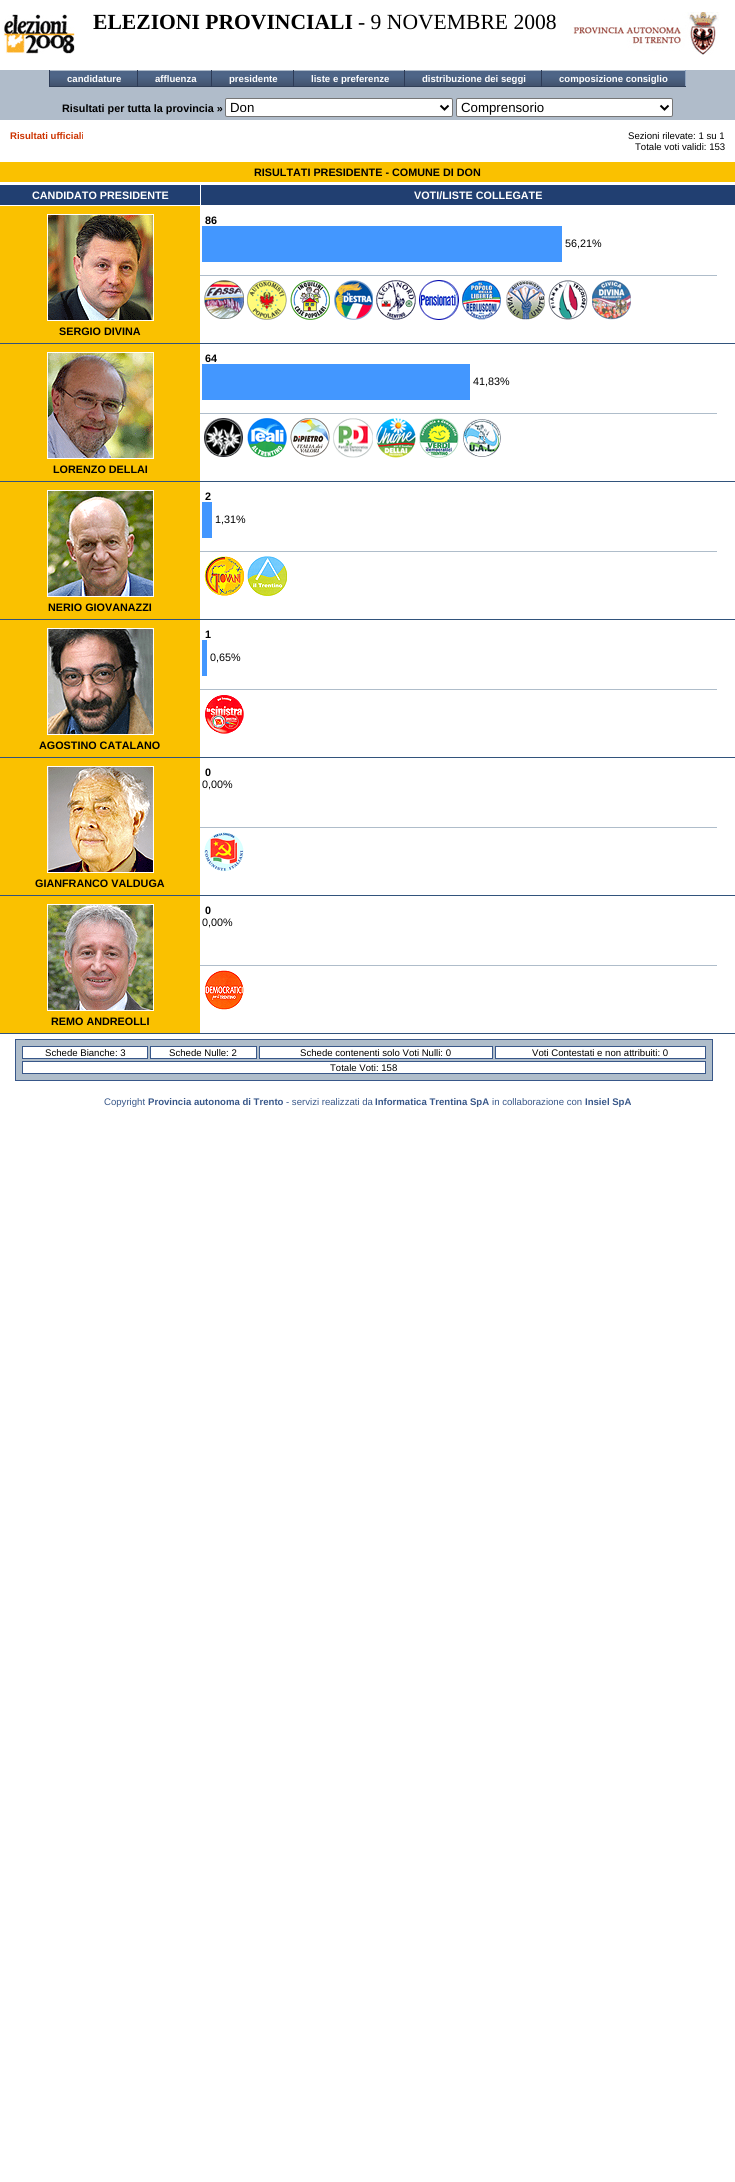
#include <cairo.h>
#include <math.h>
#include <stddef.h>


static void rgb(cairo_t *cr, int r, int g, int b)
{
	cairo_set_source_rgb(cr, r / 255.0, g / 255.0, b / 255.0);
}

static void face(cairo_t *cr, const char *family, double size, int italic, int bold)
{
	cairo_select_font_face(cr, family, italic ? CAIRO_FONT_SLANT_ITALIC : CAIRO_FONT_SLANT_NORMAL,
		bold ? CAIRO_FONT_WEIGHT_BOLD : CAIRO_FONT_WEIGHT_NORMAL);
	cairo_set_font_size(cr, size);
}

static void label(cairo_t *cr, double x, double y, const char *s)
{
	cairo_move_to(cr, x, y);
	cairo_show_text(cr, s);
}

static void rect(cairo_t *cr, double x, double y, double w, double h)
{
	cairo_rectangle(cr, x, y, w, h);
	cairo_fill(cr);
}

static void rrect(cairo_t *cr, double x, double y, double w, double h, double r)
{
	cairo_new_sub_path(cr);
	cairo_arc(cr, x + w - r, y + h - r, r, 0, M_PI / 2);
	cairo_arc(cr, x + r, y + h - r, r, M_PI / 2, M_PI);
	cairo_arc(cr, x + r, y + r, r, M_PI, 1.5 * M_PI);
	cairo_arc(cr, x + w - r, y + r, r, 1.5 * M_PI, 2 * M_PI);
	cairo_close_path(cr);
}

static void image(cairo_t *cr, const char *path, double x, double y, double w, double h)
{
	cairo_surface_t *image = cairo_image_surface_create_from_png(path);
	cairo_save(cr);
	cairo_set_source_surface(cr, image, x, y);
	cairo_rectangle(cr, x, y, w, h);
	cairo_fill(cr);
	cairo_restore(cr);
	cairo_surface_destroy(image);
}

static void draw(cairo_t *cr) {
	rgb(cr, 255, 255, 255);
	cairo_paint(cr);
	image(cr, "image0.png", 3, 14, 72, 40);
	face(cr, "Liberation Serif", 21.6, 0, 1);
	rgb(cr, 0, 0, 0);
	label(cr, 93, 29, "ELEZIONI PROVINCIALI");
	face(cr, "Liberation Serif", 21.6, 0, 0);
	label(cr, 358, 29, "- 9 NOVEMBRE 2008");
	image(cr, "image1.png", 570, 12, 150, 43);
	rgb(cr, 176, 188, 202);
	rect(cr, 0, 70, 735, 50);
	image(cr, "image2.png", 50, 71, 87, 15);
	image(cr, "image3.png", 138, 71, 73, 15);
	image(cr, "image4.png", 212, 71, 81, 15);
	image(cr, "image5.png", 294, 71, 110, 15);
	image(cr, "image6.png", 405, 71, 136, 15);
	image(cr, "image7.png", 542, 71, 143, 15);
	face(cr, "Liberation Sans", 9.6, 0, 1);
	rgb(cr, 255, 255, 255);
	label(cr, 67, 82, "candidature");
	rgb(cr, 49, 64, 87);
	rect(cr, 49, 86, 495, 1);
	rgb(cr, 45, 59, 86);
	rect(cr, 49, 70, 1, 17);
	rect(cr, 137, 70, 1, 17);
	rgb(cr, 255, 255, 255);
	label(cr, 155, 82, "affluenza");
	rgb(cr, 45, 59, 86);
	rect(cr, 211, 70, 1, 17);
	rgb(cr, 255, 255, 255);
	label(cr, 229, 82, "presidente");
	rgb(cr, 45, 59, 86);
	rect(cr, 293, 70, 1, 17);
	rgb(cr, 255, 255, 255);
	label(cr, 311, 82, "liste e preferenze");
	rgb(cr, 45, 59, 86);
	rect(cr, 404, 70, 1, 17);
	rgb(cr, 255, 255, 255);
	label(cr, 422, 82, "distribuzione dei seggi");
	rgb(cr, 142, 162, 189);
	rect(cr, 685, 70, 1, 17);
	rgb(cr, 49, 64, 87);
	rect(cr, 541, 86, 145, 1);
	rgb(cr, 45, 59, 86);
	rect(cr, 541, 70, 1, 17);
	rgb(cr, 255, 255, 255);
	label(cr, 559, 82, "composizione consiglio");
	face(cr, "Liberation Sans", 10.8, 0, 1);
	rgb(cr, 0, 0, 0);
	label(cr, 62, 112, "Risultati per tutta la provincia »");
	rgb(cr, 255, 255, 255);
	rrect(cr, 225.5, 98.5, 227, 18, 1.5);
	cairo_fill_preserve(cr);
	rgb(cr, 118, 118, 118);
	cairo_set_line_width(cr, 1);
	cairo_stroke(cr);
	cairo_new_path(cr);
	cairo_move_to(cr, 440.5, 105.5);
	cairo_line_to(cr, 444.5, 109.5);
	cairo_line_to(cr, 448.5, 105.5);
	rgb(cr, 0, 0, 0);
	cairo_set_line_width(cr, 2);
	cairo_stroke(cr);
	face(cr, "Liberation Sans", 13.25, 0, 0);
	label(cr, 230, 112, "Don");
	rgb(cr, 255, 255, 255);
	rrect(cr, 456.5, 98.5, 216, 18, 1.5);
	cairo_fill_preserve(cr);
	rgb(cr, 118, 118, 118);
	cairo_set_line_width(cr, 1);
	cairo_stroke(cr);
	cairo_new_path(cr);
	cairo_move_to(cr, 660.5, 105.5);
	cairo_line_to(cr, 664.5, 109.5);
	cairo_line_to(cr, 668.5, 105.5);
	rgb(cr, 0, 0, 0);
	cairo_set_line_width(cr, 2);
	cairo_stroke(cr);
	label(cr, 461, 112, "Comprensorio");
	face(cr, "Liberation Sans", 9.6, 0, 1);
	rgb(cr, 204, 51, 0);
	label(cr, 10, 139, "Risultati ufficiali");
	face(cr, "Liberation Sans", 9.6, 0, 0);
	rgb(cr, 0, 0, 0);
	label(cr, 628, 139, "Sezioni rilevate: 1 su 1");
	label(cr, 635, 150, "Totale voti validi: 153");
	rgb(cr, 250, 193, 0);
	rect(cr, 0, 162, 735, 20);
	face(cr, "Liberation Sans", 10.8, 0, 1);
	rgb(cr, 0, 0, 0);
	label(cr, 254, 176, "RISULTATI PRESIDENTE - COMUNE DI DON");
	rgb(cr, 33, 63, 113);
	rect(cr, 0, 185, 735, 20);
	rgb(cr, 255, 255, 255);
	rect(cr, 200, 185, 1, 20);
	label(cr, 32, 199, "CANDIDATO PRESIDENTE");
	label(cr, 414, 199, "VOTI/LISTE COLLEGATE");
	rgb(cr, 250, 193, 0);
	rect(cr, 0, 206, 200, 137);
	rgb(cr, 50, 83, 124);
	rect(cr, 0, 343, 735, 1);
	rgb(cr, 175, 189, 202);
	rect(cr, 200, 275, 517, 1);
	rgb(cr, 0, 0, 0);
	label(cr, 205, 224, "86");
	rgb(cr, 67, 151, 255);
	rect(cr, 202, 226, 360, 36);
	face(cr, "Liberation Sans", 10.8, 0, 0);
	rgb(cr, 0, 0, 0);
	label(cr, 565, 247, "56,21%");
	image(cr, "image8.png", 204, 280, 40, 39);
	image(cr, "image9.png", 247, 280, 40, 40);
	image(cr, "image10.png", 290, 280, 40, 40);
	image(cr, "image11.png", 334, 280, 39, 40);
	image(cr, "image12.png", 376, 280, 40, 40);
	image(cr, "image13.png", 419, 280, 40, 40);
	image(cr, "image14.png", 462, 280, 39, 40);
	image(cr, "image15.png", 506, 280, 39, 40);
	image(cr, "image16.png", 548, 280, 40, 40);
	image(cr, "image17.png", 592, 280, 39, 40);
	cairo_rectangle(cr, 47.5, 214.5, 106, 106);
	rgb(cr, 255, 255, 255);
	cairo_set_line_width(cr, 1);
	cairo_stroke(cr);
	image(cr, "image18.png", 48, 215, 105, 105);
	face(cr, "Liberation Sans", 10.8, 0, 1);
	rgb(cr, 0, 0, 0);
	label(cr, 59, 335, "SERGIO DIVINA");
	rgb(cr, 250, 193, 0);
	rect(cr, 0, 344, 200, 137);
	rgb(cr, 50, 83, 124);
	rect(cr, 0, 481, 735, 1);
	rgb(cr, 175, 189, 202);
	rect(cr, 200, 413, 517, 1);
	rgb(cr, 0, 0, 0);
	label(cr, 205, 362, "64");
	rgb(cr, 67, 151, 255);
	rect(cr, 202, 364, 268, 36);
	face(cr, "Liberation Sans", 10.8, 0, 0);
	rgb(cr, 0, 0, 0);
	label(cr, 473, 385, "41,83%");
	image(cr, "image19.png", 204, 418, 39, 39);
	image(cr, "image20.png", 247, 418, 40, 40);
	image(cr, "image21.png", 290, 418, 40, 39);
	image(cr, "image22.png", 333, 418, 40, 40);
	image(cr, "image23.png", 376, 418, 40, 40);
	image(cr, "image24.png", 419, 418, 40, 40);
	image(cr, "image25.png", 463, 419, 38, 38);
	cairo_rectangle(cr, 47.5, 352.5, 106, 106);
	rgb(cr, 255, 255, 255);
	cairo_stroke(cr);
	image(cr, "image26.png", 48, 353, 105, 105);
	face(cr, "Liberation Sans", 10.8, 0, 1);
	rgb(cr, 0, 0, 0);
	label(cr, 53, 473, "LORENZO DELLAI");
	rgb(cr, 250, 193, 0);
	rect(cr, 0, 482, 200, 137);
	rgb(cr, 50, 83, 124);
	rect(cr, 0, 619, 735, 1);
	rgb(cr, 175, 189, 202);
	rect(cr, 200, 551, 517, 1);
	rgb(cr, 0, 0, 0);
	label(cr, 205, 500, "2");
	rgb(cr, 67, 151, 255);
	rect(cr, 202, 502, 10, 36);
	face(cr, "Liberation Sans", 10.8, 0, 0);
	rgb(cr, 0, 0, 0);
	label(cr, 215, 523, "1,31%");
	image(cr, "image27.png", 204, 556, 40, 40);
	image(cr, "image28.png", 247, 556, 40, 40);
	cairo_rectangle(cr, 47.5, 490.5, 106, 106);
	rgb(cr, 255, 255, 255);
	cairo_stroke(cr);
	image(cr, "image29.png", 48, 491, 105, 105);
	face(cr, "Liberation Sans", 10.8, 0, 1);
	rgb(cr, 0, 0, 0);
	label(cr, 48, 611, "NERIO GIOVANAZZI");
	rgb(cr, 250, 193, 0);
	rect(cr, 0, 620, 200, 137);
	rgb(cr, 50, 83, 124);
	rect(cr, 0, 757, 735, 1);
	rgb(cr, 175, 189, 202);
	rect(cr, 200, 689, 517, 1);
	rgb(cr, 0, 0, 0);
	label(cr, 205, 638, "1");
	rgb(cr, 67, 151, 255);
	rect(cr, 202, 640, 5, 36);
	face(cr, "Liberation Sans", 10.8, 0, 0);
	rgb(cr, 0, 0, 0);
	label(cr, 210, 661, "0,65%");
	image(cr, "image30.png", 205, 695, 39, 39);
	cairo_rectangle(cr, 47.5, 628.5, 106, 106);
	rgb(cr, 255, 255, 255);
	cairo_stroke(cr);
	image(cr, "image31.png", 48, 629, 105, 105);
	face(cr, "Liberation Sans", 10.8, 0, 1);
	rgb(cr, 0, 0, 0);
	label(cr, 39, 749, "AGOSTINO CATALANO");
	rgb(cr, 250, 193, 0);
	rect(cr, 0, 758, 200, 137);
	rgb(cr, 50, 83, 124);
	rect(cr, 0, 895, 735, 1);
	rgb(cr, 175, 189, 202);
	rect(cr, 200, 827, 517, 1);
	rgb(cr, 0, 0, 0);
	label(cr, 205, 776, "0");
	face(cr, "Liberation Sans", 10.8, 0, 0);
	label(cr, 202, 788, "0,00%");
	image(cr, "image32.png", 204, 832, 40, 40);
	cairo_rectangle(cr, 47.5, 766.5, 106, 106);
	rgb(cr, 255, 255, 255);
	cairo_stroke(cr);
	image(cr, "image33.png", 48, 767, 105, 105);
	face(cr, "Liberation Sans", 10.8, 0, 1);
	rgb(cr, 0, 0, 0);
	label(cr, 35, 887, "GIANFRANCO VALDUGA");
	rgb(cr, 250, 193, 0);
	rect(cr, 0, 896, 200, 137);
	rgb(cr, 50, 83, 124);
	rect(cr, 0, 1033, 735, 1);
	rgb(cr, 175, 189, 202);
	rect(cr, 200, 965, 517, 1);
	rgb(cr, 0, 0, 0);
	label(cr, 205, 914, "0");
	face(cr, "Liberation Sans", 10.8, 0, 0);
	label(cr, 202, 926, "0,00%");
	image(cr, "image34.png", 204, 970, 40, 40);
	cairo_rectangle(cr, 47.5, 904.5, 106, 106);
	rgb(cr, 255, 255, 255);
	cairo_stroke(cr);
	image(cr, "image35.png", 48, 905, 105, 105);
	face(cr, "Liberation Sans", 10.8, 0, 1);
	rgb(cr, 0, 0, 0);
	label(cr, 51, 1025, "REMO ANDREOLLI");
	rgb(cr, 175, 189, 202);
	cairo_rectangle(cr, 15.5, 1039.5, 697, 41);
	cairo_fill_preserve(cr);
	rgb(cr, 56, 87, 137);
	cairo_stroke(cr);
	rgb(cr, 255, 255, 255);
	cairo_rectangle(cr, 22.5, 1046.5, 125, 12);
	cairo_fill_preserve(cr);
	rgb(cr, 56, 87, 137);
	cairo_stroke(cr);
	face(cr, "Liberation Sans", 9.6, 0, 0);
	rgb(cr, 0, 0, 0);
	label(cr, 45, 1056, "Schede Bianche: 3");
	rgb(cr, 255, 255, 255);
	cairo_rectangle(cr, 150.5, 1046.5, 106, 12);
	cairo_fill_preserve(cr);
	rgb(cr, 56, 87, 137);
	cairo_stroke(cr);
	rgb(cr, 0, 0, 0);
	label(cr, 169, 1056, "Schede Nulle: 2");
	rgb(cr, 255, 255, 255);
	cairo_rectangle(cr, 259.5, 1046.5, 233, 12);
	cairo_fill_preserve(cr);
	rgb(cr, 56, 87, 137);
	cairo_stroke(cr);
	rgb(cr, 0, 0, 0);
	label(cr, 300, 1056, "Schede contenenti solo Voti Nulli: 0");
	rgb(cr, 255, 255, 255);
	cairo_rectangle(cr, 495.5, 1046.5, 210, 12);
	cairo_fill_preserve(cr);
	rgb(cr, 56, 87, 137);
	cairo_stroke(cr);
	rgb(cr, 0, 0, 0);
	label(cr, 532, 1056, "Voti Contestati e non attribuiti: 0");
	rgb(cr, 255, 255, 255);
	cairo_rectangle(cr, 22.5, 1061.5, 683, 12);
	cairo_fill_preserve(cr);
	rgb(cr, 56, 87, 137);
	cairo_stroke(cr);
	rgb(cr, 0, 0, 0);
	label(cr, 330, 1071, "Totale Voti: 158");
	rgb(cr, 56, 87, 137);
	label(cr, 104, 1105, "Copyright");
	face(cr, "Liberation Sans", 9.6, 0, 1);
	label(cr, 148, 1105, "Provincia autonoma di Trento");
	face(cr, "Liberation Sans", 9.6, 0, 0);
	label(cr, 286, 1105, "- servizi realizzati da");
	face(cr, "Liberation Sans", 9.6, 0, 1);
	label(cr, 375, 1105, "Informatica Trentina SpA");
	face(cr, "Liberation Sans", 9.6, 0, 0);
	label(cr, 492, 1105, "in collaborazione con");
	face(cr, "Liberation Sans", 9.6, 0, 1);
	label(cr, 585, 1105, "Insiel SpA");
}

int main(void) {
	cairo_surface_t *surface = cairo_image_surface_create(CAIRO_FORMAT_RGB24, 735, 2182);
	cairo_t *cr = cairo_create(surface);
	cairo_font_options_t *options = cairo_font_options_create();
	cairo_font_options_set_hint_metrics(options, CAIRO_HINT_METRICS_OFF);
	cairo_font_options_set_hint_style(options, CAIRO_HINT_STYLE_NONE);
	cairo_set_font_options(cr, options);
	cairo_set_miter_limit(cr, 4);
	draw(cr);
	cairo_surface_write_to_png(surface, "render.png");
	cairo_font_options_destroy(options);
	cairo_destroy(cr);
	cairo_surface_destroy(surface);
	return 0;
}
